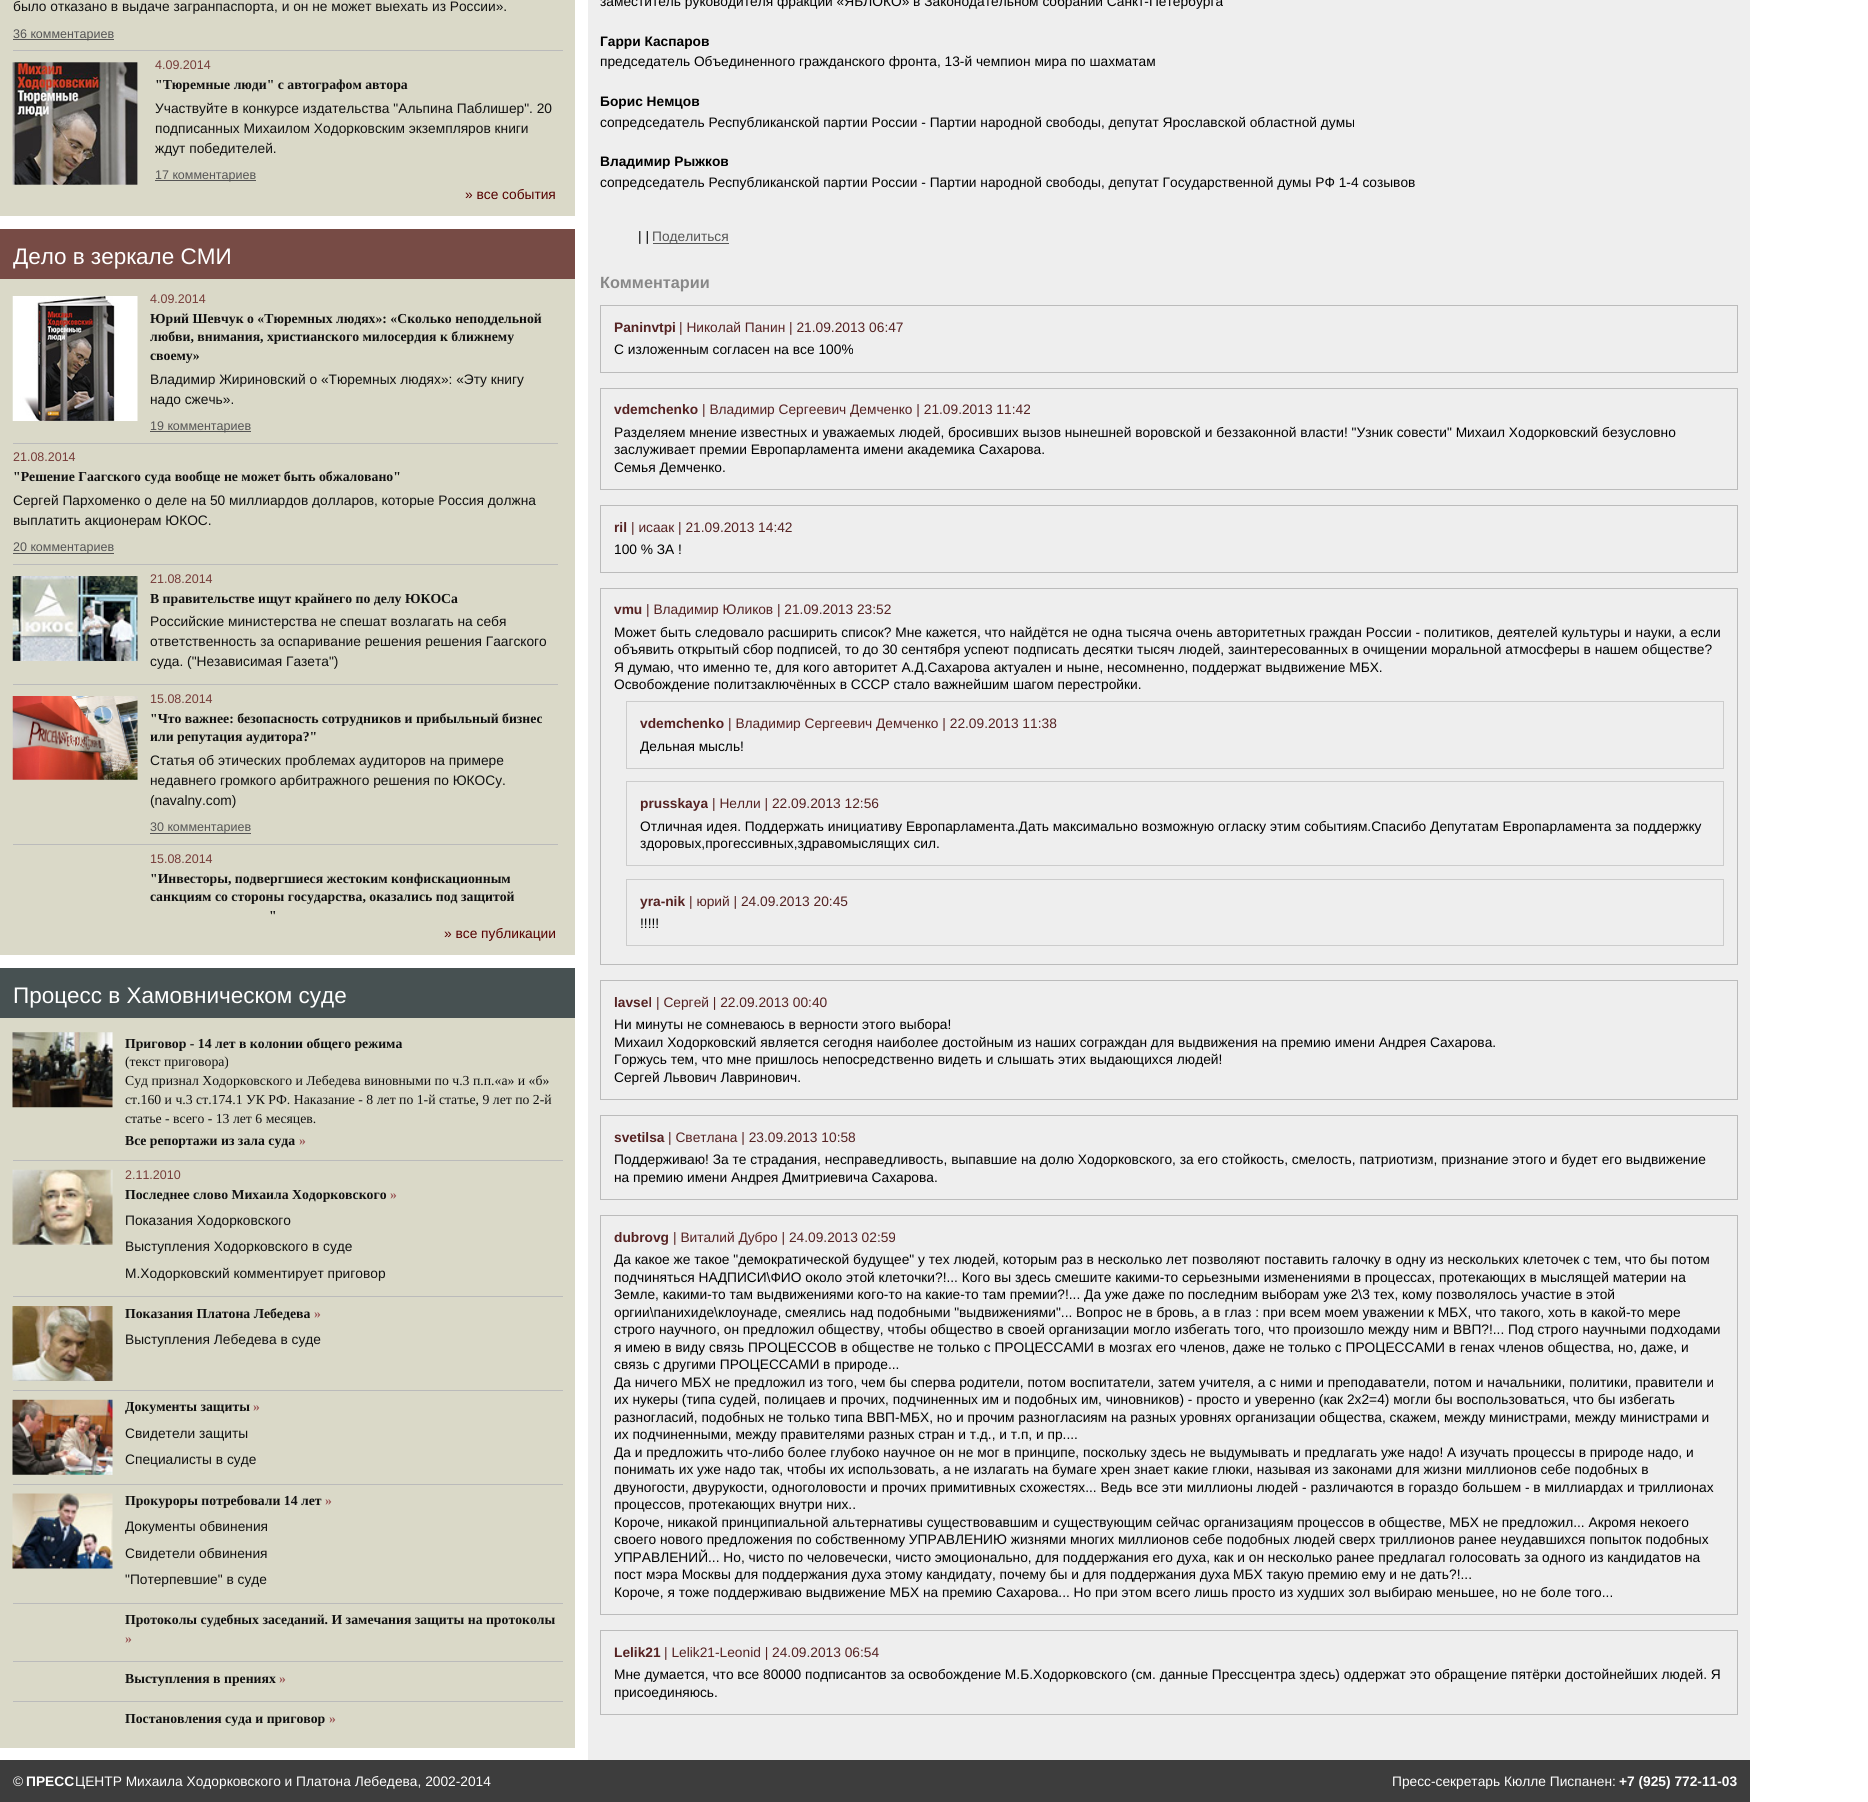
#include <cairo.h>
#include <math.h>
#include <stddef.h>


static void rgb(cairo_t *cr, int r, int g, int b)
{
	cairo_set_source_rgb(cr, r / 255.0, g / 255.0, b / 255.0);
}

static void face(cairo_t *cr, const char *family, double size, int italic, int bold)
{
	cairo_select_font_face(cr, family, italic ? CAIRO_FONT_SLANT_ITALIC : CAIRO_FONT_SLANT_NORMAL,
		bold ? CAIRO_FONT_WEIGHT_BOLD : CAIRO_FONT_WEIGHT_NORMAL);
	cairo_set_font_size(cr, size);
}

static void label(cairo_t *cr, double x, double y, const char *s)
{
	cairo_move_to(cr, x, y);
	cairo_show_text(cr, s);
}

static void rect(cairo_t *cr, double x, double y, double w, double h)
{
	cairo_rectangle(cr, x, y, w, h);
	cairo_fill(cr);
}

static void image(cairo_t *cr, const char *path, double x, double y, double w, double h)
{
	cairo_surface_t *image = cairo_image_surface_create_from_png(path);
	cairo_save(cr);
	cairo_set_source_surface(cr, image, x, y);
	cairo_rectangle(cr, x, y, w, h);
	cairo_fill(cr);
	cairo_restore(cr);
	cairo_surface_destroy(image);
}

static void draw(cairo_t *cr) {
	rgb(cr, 255, 255, 255);
	cairo_paint(cr);
	rgb(cr, 218, 217, 200);
	rect(cr, 0, 0, 575, 216);
	face(cr, "Liberation Sans", 13.75, 0, 0);
	rgb(cr, 17, 17, 17);
	label(cr, 13, 11, "было отказано в выдаче загранпаспорта, и он не может выехать из России».");
	rgb(cr, 85, 85, 85);
	rect(cr, 13, 39, 101, 1);
	face(cr, "Liberation Sans", 12.5, 0, 0);
	label(cr, 13, 38, "36 комментариев");
	rgb(cr, 187, 187, 187);
	rect(cr, 13, 50, 550, 1);
	image(cr, "image0.png", 12, 62, 126, 123);
	rgb(cr, 118, 60, 57);
	label(cr, 155, 69, "4.09.2014");
	face(cr, "Liberation Serif", 13.75, 0, 1);
	rgb(cr, 17, 17, 17);
	label(cr, 155, 89, "\"Тюремные люди\" с автографом автора");
	face(cr, "Liberation Sans", 13.75, 0, 0);
	label(cr, 155, 113, "Участвуйте в конкурсе издательства \"Альпина Паблишер\". 20");
	label(cr, 155, 133, "подписанных Михаилом Ходорковским экземпляров книги");
	label(cr, 155, 153, "ждут победителей.");
	rgb(cr, 85, 85, 85);
	rect(cr, 155, 180, 101, 1);
	face(cr, "Liberation Sans", 12.5, 0, 0);
	label(cr, 155, 179, "17 комментариев");
	face(cr, "Liberation Sans", 13.75, 0, 0);
	rgb(cr, 85, 0, 0);
	label(cr, 465, 199, "» все события");
	rgb(cr, 119, 75, 69);
	rect(cr, 0, 229, 575, 50);
	face(cr, "Liberation Sans", 22.5, 0, 0);
	rgb(cr, 255, 255, 255);
	label(cr, 13, 264, "Дело в зеркале СМИ");
	rgb(cr, 218, 217, 200);
	rect(cr, 0, 279, 575, 676);
	image(cr, "image1.png", 12, 296, 126, 125);
	face(cr, "Liberation Sans", 12.5, 0, 0);
	rgb(cr, 118, 60, 57);
	label(cr, 150, 303, "4.09.2014");
	face(cr, "Liberation Serif", 13.75, 0, 1);
	rgb(cr, 17, 17, 17);
	label(cr, 150, 323, "Юрий Шевчук о «Тюремных людях»: «Сколько неподдельной");
	label(cr, 150, 341, "любви, внимания, христианского милосердия к ближнему");
	label(cr, 150, 360, "своему»");
	face(cr, "Liberation Sans", 13.75, 0, 0);
	label(cr, 150, 384, "Владимир Жириновский о «Тюремных людях»: «Эту книгу");
	label(cr, 150, 404, "надо сжечь».");
	rgb(cr, 85, 85, 85);
	rect(cr, 150, 431, 101, 1);
	face(cr, "Liberation Sans", 12.5, 0, 0);
	label(cr, 150, 430, "19 комментариев");
	rgb(cr, 187, 187, 187);
	rect(cr, 13, 443, 545, 1);
	rgb(cr, 118, 60, 57);
	label(cr, 13, 461, "21.08.2014");
	face(cr, "Liberation Serif", 13.75, 0, 1);
	rgb(cr, 17, 17, 17);
	label(cr, 13, 481, "\"Решение Гаагского суда вообще не может быть обжаловано\"");
	face(cr, "Liberation Sans", 13.75, 0, 0);
	label(cr, 13, 505, "Сергей Пархоменко о деле на 50 миллиардов долларов, которые Россия должна");
	label(cr, 13, 525, "выплатить акционерам ЮКОС.");
	rgb(cr, 85, 85, 85);
	rect(cr, 13, 553, 101, 1);
	face(cr, "Liberation Sans", 12.5, 0, 0);
	label(cr, 13, 551, "20 комментариев");
	rgb(cr, 187, 187, 187);
	rect(cr, 13, 564, 545, 1);
	image(cr, "image2.png", 12, 576, 126, 85);
	rgb(cr, 118, 60, 57);
	label(cr, 150, 583, "21.08.2014");
	face(cr, "Liberation Serif", 13.75, 0, 1);
	rgb(cr, 17, 17, 17);
	label(cr, 150, 603, "В правительстве ищут крайнего по делу ЮКОСа");
	face(cr, "Liberation Sans", 13.75, 0, 0);
	label(cr, 150, 626, "Российские министерства не спешат возлагать на себя");
	label(cr, 150, 646, "ответственность за оспаривание решения решения Гаагского");
	label(cr, 150, 666, "суда. (\"Независимая Газета\")");
	rgb(cr, 187, 187, 187);
	rect(cr, 13, 684, 545, 1);
	image(cr, "image3.png", 12, 696, 126, 84);
	face(cr, "Liberation Sans", 12.5, 0, 0);
	rgb(cr, 118, 60, 57);
	label(cr, 150, 703, "15.08.2014");
	face(cr, "Liberation Serif", 13.75, 0, 1);
	rgb(cr, 17, 17, 17);
	label(cr, 150, 723, "\"Что важнее: безопасность сотрудников и прибыльный бизнес");
	label(cr, 150, 741, "или репутация аудитора?\"");
	face(cr, "Liberation Sans", 13.75, 0, 0);
	label(cr, 150, 765, "Статья об этических проблемах аудиторов на примере");
	label(cr, 150, 785, "недавнего громкого арбитражного решения по ЮКОСу.");
	label(cr, 150, 805, "(navalny.com)");
	rgb(cr, 85, 85, 85);
	rect(cr, 150, 833, 101, 1);
	face(cr, "Liberation Sans", 12.5, 0, 0);
	label(cr, 150, 831, "30 комментариев");
	rgb(cr, 187, 187, 187);
	rect(cr, 13, 844, 545, 1);
	rgb(cr, 118, 60, 57);
	label(cr, 150, 863, "15.08.2014");
	face(cr, "Liberation Serif", 13.75, 0, 1);
	rgb(cr, 17, 17, 17);
	label(cr, 150, 883, "\"Инвесторы, подвергшиеся жестоким конфискационным");
	label(cr, 150, 901, "санкциям со стороны государства, оказались под защитой");
	label(cr, 269, 920, "\"");
	face(cr, "Liberation Sans", 13.75, 0, 0);
	rgb(cr, 85, 0, 0);
	label(cr, 444, 938, "» все публикации");
	rgb(cr, 71, 81, 82);
	rect(cr, 0, 968, 575, 50);
	face(cr, "Liberation Sans", 22.5, 0, 0);
	rgb(cr, 255, 255, 255);
	label(cr, 13, 1003, "Процесс в Хамовническом суде");
	rgb(cr, 218, 217, 200);
	rect(cr, 0, 1018, 575, 730);
	image(cr, "image4.png", 12, 1032, 101, 76);
	face(cr, "Liberation Serif", 13.75, 0, 1);
	rgb(cr, 17, 17, 17);
	label(cr, 125, 1048, "Приговор - 14 лет в колонии общего режима");
	face(cr, "Liberation Serif", 13.75, 0, 0);
	label(cr, 125, 1066, "(текст приговора)");
	label(cr, 125, 1085, "Суд признал Ходорковского и Лебедева виновными по ч.3 п.п.«а» и «б»");
	label(cr, 125, 1104, "ст.160 и ч.3 ст.174.1 УК РФ. Наказание - 8 лет по 1-й статье, 9 лет по 2-й");
	label(cr, 125, 1123, "статье - всего - 13 лет 6 месяцев.");
	face(cr, "Liberation Serif", 13.75, 0, 1);
	label(cr, 125, 1145, "Все репортажи из зала суда");
	rgb(cr, 153, 85, 85);
	label(cr, 299, 1145, "»");
	rgb(cr, 187, 187, 187);
	rect(cr, 13, 1160, 550, 1);
	image(cr, "image5.png", 12, 1169, 101, 76);
	face(cr, "Liberation Sans", 12.5, 0, 0);
	rgb(cr, 118, 60, 57);
	label(cr, 125, 1179, "2.11.2010");
	face(cr, "Liberation Serif", 13.75, 0, 1);
	rgb(cr, 17, 17, 17);
	label(cr, 125, 1199, "Последнее слово Михаила Ходорковского");
	rgb(cr, 153, 85, 85);
	label(cr, 390, 1199, "»");
	face(cr, "Liberation Sans", 13.75, 0, 0);
	rgb(cr, 17, 17, 17);
	label(cr, 125, 1225, "Показания Ходорковского");
	label(cr, 125, 1251, "Выступления Ходорковского в суде");
	label(cr, 125, 1278, "М.Ходорковский комментирует приговор");
	rgb(cr, 187, 187, 187);
	rect(cr, 13, 1296, 550, 1);
	image(cr, "image6.png", 12, 1306, 101, 75);
	face(cr, "Liberation Serif", 13.75, 0, 1);
	rgb(cr, 17, 17, 17);
	label(cr, 125, 1318, "Показания Платона Лебедева");
	rgb(cr, 153, 85, 85);
	label(cr, 314, 1318, "»");
	face(cr, "Liberation Sans", 13.75, 0, 0);
	rgb(cr, 17, 17, 17);
	label(cr, 125, 1344, "Выступления Лебедева в суде");
	rgb(cr, 187, 187, 187);
	rect(cr, 13, 1390, 550, 1);
	image(cr, "image7.png", 12, 1399, 101, 76);
	face(cr, "Liberation Serif", 13.75, 0, 1);
	rgb(cr, 17, 17, 17);
	label(cr, 125, 1411, "Документы защиты");
	rgb(cr, 153, 85, 85);
	label(cr, 253, 1411, "»");
	face(cr, "Liberation Sans", 13.75, 0, 0);
	rgb(cr, 17, 17, 17);
	label(cr, 125, 1438, "Cвидетели защиты");
	label(cr, 125, 1464, "Cпециалисты в суде");
	rgb(cr, 187, 187, 187);
	rect(cr, 13, 1484, 550, 1);
	image(cr, "image8.png", 12, 1493, 101, 76);
	face(cr, "Liberation Serif", 13.75, 0, 1);
	rgb(cr, 17, 17, 17);
	label(cr, 125, 1505, "Прокуроры потребовали 14 лет");
	rgb(cr, 153, 85, 85);
	label(cr, 325, 1505, "»");
	face(cr, "Liberation Sans", 13.75, 0, 0);
	rgb(cr, 17, 17, 17);
	label(cr, 125, 1531, "Документы обвинения");
	label(cr, 125, 1558, "Свидетели обвинения");
	label(cr, 125, 1584, "\"Потерпевшие\" в суде");
	rgb(cr, 187, 187, 187);
	rect(cr, 13, 1603, 550, 1);
	face(cr, "Liberation Serif", 13.75, 0, 1);
	rgb(cr, 17, 17, 17);
	label(cr, 125, 1624, "Протоколы судебных заседаний. И замечания защиты на протоколы");
	rgb(cr, 153, 85, 85);
	label(cr, 125, 1643, "»");
	rgb(cr, 187, 187, 187);
	rect(cr, 13, 1661, 550, 1);
	rgb(cr, 17, 17, 17);
	label(cr, 125, 1683, "Выступления в прениях");
	rgb(cr, 153, 85, 85);
	label(cr, 279, 1683, "»");
	rgb(cr, 187, 187, 187);
	rect(cr, 13, 1701, 550, 1);
	rgb(cr, 17, 17, 17);
	label(cr, 125, 1723, "Постановления суда и приговор");
	rgb(cr, 153, 85, 85);
	label(cr, 329, 1723, "»");
	rgb(cr, 238, 238, 238);
	rect(cr, 588, 0, 1162, 1760);
	face(cr, "Liberation Sans", 13.75, 0, 0);
	rgb(cr, 0, 0, 0);
	label(cr, 600, 6, "заместитель руководителя фракции «ЯБЛОКО» в Законодательном собрании Санкт-Петербурга");
	face(cr, "Liberation Sans", 13.75, 0, 1);
	label(cr, 600, 46, "Гарри Каспаров");
	face(cr, "Liberation Sans", 13.75, 0, 0);
	label(cr, 600, 66, "председатель Объединенного гражданского фронта, 13-й чемпион мира по шахматам");
	face(cr, "Liberation Sans", 13.75, 0, 1);
	label(cr, 600, 106, "Борис Немцов");
	face(cr, "Liberation Sans", 13.75, 0, 0);
	label(cr, 600, 127, "сопредседатель Республиканской партии России - Партии народной свободы, депутат Ярославской областной думы");
	face(cr, "Liberation Sans", 13.75, 0, 1);
	label(cr, 600, 166, "Владимир Рыжков");
	face(cr, "Liberation Sans", 13.75, 0, 0);
	label(cr, 600, 187, "сопредседатель Республиканской партии России - Партии народной свободы, депутат Государственной думы РФ 1-4 созывов");
	label(cr, 638, 241, "| |");
	rgb(cr, 85, 85, 85);
	rect(cr, 653, 243, 76, 1);
	label(cr, 652, 241, "Поделиться");
	face(cr, "Liberation Sans", 16.25, 0, 1);
	rgb(cr, 136, 136, 136);
	label(cr, 600, 288, "Комментарии");
	cairo_rectangle(cr, 600.5, 305.5, 1137, 67);
	rgb(cr, 187, 187, 187);
	cairo_set_line_width(cr, 1);
	cairo_stroke(cr);
	face(cr, "Liberation Sans", 13.75, 0, 1);
	rgb(cr, 85, 34, 34);
	label(cr, 614, 332, "Paninvtpi");
	face(cr, "Liberation Sans", 13.75, 0, 0);
	label(cr, 679, 332, "| Николай Панин | 21.09.2013 06:47");
	rgb(cr, 0, 0, 0);
	label(cr, 614, 354, "С изложенным согласен на все 100%");
	cairo_rectangle(cr, 600.5, 388.5, 1137, 101);
	rgb(cr, 187, 187, 187);
	cairo_stroke(cr);
	face(cr, "Liberation Sans", 13.75, 0, 1);
	rgb(cr, 85, 34, 34);
	label(cr, 614, 414, "vdemchenko");
	face(cr, "Liberation Sans", 13.75, 0, 0);
	label(cr, 702, 414, "| Владимир Сергеевич Демченко | 21.09.2013 11:42");
	rgb(cr, 0, 0, 0);
	label(cr, 614, 437, "Разделяем мнение известных и уважаемых людей, бросивших вызов нынешней воровской и беззаконной власти! \"Узник совести\" Михаил Ходорковский безусловно");
	label(cr, 614, 454, "заслуживает премии Европарламента имени академика Сахарова.");
	label(cr, 614, 472, "Семья Демченко.");
	cairo_rectangle(cr, 600.5, 505.5, 1137, 67);
	rgb(cr, 187, 187, 187);
	cairo_stroke(cr);
	face(cr, "Liberation Sans", 13.75, 0, 1);
	rgb(cr, 85, 34, 34);
	label(cr, 614, 532, "ril");
	face(cr, "Liberation Sans", 13.75, 0, 0);
	label(cr, 631, 532, "| исаак | 21.09.2013 14:42");
	rgb(cr, 0, 0, 0);
	label(cr, 614, 554, "100 % ЗА !");
	cairo_rectangle(cr, 600.5, 588.5, 1137, 376);
	rgb(cr, 187, 187, 187);
	cairo_stroke(cr);
	face(cr, "Liberation Sans", 13.75, 0, 1);
	rgb(cr, 85, 34, 34);
	label(cr, 614, 614, "vmu");
	face(cr, "Liberation Sans", 13.75, 0, 0);
	label(cr, 646, 614, "| Владимир Юликов | 21.09.2013 23:52");
	rgb(cr, 0, 0, 0);
	label(cr, 614, 637, "Может быть следовало расширить список? Мне кажется, что найдётся не одна тысяча очень авторитетных граждан России - политиков, деятелей культуры и науки, а если");
	label(cr, 614, 654, "объявить открытый сбор подписей, то до 30 сентября успеют подписать десятки тысяч людей, заинтересованных в очищении моральной атмосферы в нашем обществе?");
	label(cr, 614, 672, "Я думаю, что именно те, для кого авторитет А.Д.Сахарова актуален и ныне, несомненно, поддержат выдвижение МБХ.");
	label(cr, 614, 689, "Освобождение политзаключённых в СССР стало важнейшим шагом перестройки.");
	cairo_rectangle(cr, 626.5, 701.5, 1097, 67);
	rgb(cr, 204, 204, 204);
	cairo_stroke(cr);
	face(cr, "Liberation Sans", 13.75, 0, 1);
	rgb(cr, 85, 34, 34);
	label(cr, 640, 728, "vdemchenko");
	face(cr, "Liberation Sans", 13.75, 0, 0);
	label(cr, 728, 728, "| Владимир Сергеевич Демченко | 22.09.2013 11:38");
	rgb(cr, 0, 0, 0);
	label(cr, 640, 751, "Дельная мысль!");
	cairo_rectangle(cr, 626.5, 781.5, 1097, 84);
	rgb(cr, 204, 204, 204);
	cairo_stroke(cr);
	face(cr, "Liberation Sans", 13.75, 0, 1);
	rgb(cr, 85, 34, 34);
	label(cr, 640, 808, "prusskaya");
	face(cr, "Liberation Sans", 13.75, 0, 0);
	label(cr, 712, 808, "| Нелли | 22.09.2013 12:56");
	rgb(cr, 0, 0, 0);
	label(cr, 640, 831, "Отличная идея. Поддержать инициативу Европарламента.Дать максимально возможную огласку этим событиям.Спасибо Депутатам Европарламента за поддержку");
	label(cr, 640, 848, "здоровых,прогессивных,здравомыслящих сил.");
	cairo_rectangle(cr, 626.5, 879.5, 1097, 66);
	rgb(cr, 204, 204, 204);
	cairo_stroke(cr);
	face(cr, "Liberation Sans", 13.75, 0, 1);
	rgb(cr, 85, 34, 34);
	label(cr, 640, 906, "yra-nik");
	face(cr, "Liberation Sans", 13.75, 0, 0);
	label(cr, 689, 906, "| юрий | 24.09.2013 20:45");
	rgb(cr, 0, 0, 0);
	label(cr, 640, 928, "!!!!!");
	cairo_rectangle(cr, 600.5, 980.5, 1137, 119);
	rgb(cr, 187, 187, 187);
	cairo_stroke(cr);
	face(cr, "Liberation Sans", 13.75, 0, 1);
	rgb(cr, 85, 34, 34);
	label(cr, 614, 1007, "lavsel");
	face(cr, "Liberation Sans", 13.75, 0, 0);
	label(cr, 656, 1007, "| Сергей | 22.09.2013 00:40");
	rgb(cr, 0, 0, 0);
	label(cr, 614, 1029, "Ни минуты не сомневаюсь в верности этого выбора!");
	label(cr, 614, 1047, "Михаил Ходорковский является сегодня наиболее достойным из наших сограждан для выдвижения на премию имени Андрея Сахарова.");
	label(cr, 614, 1064, "Горжусь тем, что мне пришлось непосредственно видеть и слышать этих выдающихся людей!");
	label(cr, 614, 1082, "Сергей Львович Лавринович.");
	cairo_rectangle(cr, 600.5, 1115.5, 1137, 84);
	rgb(cr, 187, 187, 187);
	cairo_stroke(cr);
	face(cr, "Liberation Sans", 13.75, 0, 1);
	rgb(cr, 85, 34, 34);
	label(cr, 614, 1142, "svetilsa");
	face(cr, "Liberation Sans", 13.75, 0, 0);
	label(cr, 668, 1142, "| Светлана | 23.09.2013 10:58");
	rgb(cr, 0, 0, 0);
	label(cr, 614, 1164, "Поддерживаю! За те страдания, несправедливость, выпавшие на долю Ходорковского, за его стойкость, смелость, патриотизм, признание этого и будет его выдвижение");
	label(cr, 614, 1182, "на премию имени Андрея Дмитриевича Сахарова.");
	cairo_rectangle(cr, 600.5, 1215.5, 1137, 399);
	rgb(cr, 187, 187, 187);
	cairo_stroke(cr);
	face(cr, "Liberation Sans", 13.75, 0, 1);
	rgb(cr, 85, 34, 34);
	label(cr, 614, 1242, "dubrovg");
	face(cr, "Liberation Sans", 13.75, 0, 0);
	label(cr, 673, 1242, "| Виталий Дубро | 24.09.2013 02:59");
	rgb(cr, 0, 0, 0);
	label(cr, 614, 1264, "Да какое же такое \"демократической будущее\" у тех людей, которым раз в несколько лет позволяют поставить галочку в одну из нескольких клеточек с тем, что бы потом");
	label(cr, 614, 1282, "подчиняться НАДПИСИ\\ФИО около этой клеточки?!... Кого вы здесь смешите какими-то серьезными изменениями в процессах, протекающих в мыслящей материи на");
	label(cr, 614, 1299, "Земле, какими-то там выдвижениями кого-то на какие-то там премии?!... Да уже даже по последним выборам уже 2\\3 тех, кому позволялось участие в этой");
	label(cr, 614, 1317, "оргии\\панихиде\\клоунаде, смеялись над подобными \"выдвижениями\"... Вопрос не в бровь, а в глаз : при всем моем уважении к МБХ, что такого, хоть в какой-то мере");
	label(cr, 614, 1334, "строго научного, он предложил обществу, чтобы общество в своей организации могло избегать того, что произошло между ним и ВВП?!... Под строго научными подходами");
	label(cr, 614, 1352, "я имею в виду связь ПРОЦЕССОВ в обществе не только с ПРОЦЕССАМИ в мозгах его членов, даже не только с ПРОЦЕССАМИ в генах членов общества, но, даже, и");
	label(cr, 614, 1369, "связь с другими ПРОЦЕССАМИ в природе...");
	label(cr, 614, 1387, "Да ничего МБХ не предложил из того, чем бы сперва родители, потом воспитатели, затем учителя, а с ними и преподаватели, потом и начальники, политики, правители и");
	label(cr, 614, 1404, "их нукеры (типа судей, полицаев и прочих, подчиненных им и подобных им, чиновников) - просто и уверенно (как 2х2=4) могли бы воспользоваться, что бы избегать");
	label(cr, 614, 1422, "разногласий, подобных не только типа ВВП-МБХ, но и прочим разногласиям на разных уровнях организации общества, скажем, между министрами, между министрами и");
	label(cr, 614, 1439, "их подчиненными, между правителями разных стран и т.д., и т.п, и пр....");
	label(cr, 614, 1457, "Да и предложить что-либо более глубоко научное он не мог в принципе, поскольку здесь не выдумывать и предлагать уже надо! А изучать процессы в природе надо, и");
	label(cr, 614, 1474, "понимать их уже надо так, чтобы их использовать, а не излагать на бумаге хрен знает какие глюки, называя из законами для жизни миллионов себе подобных в");
	label(cr, 614, 1492, "двуногости, двурукости, одноголовости и прочих примитивных схожестях... Ведь все эти миллионы людей - различаются в гораздо большем - в миллиардах и триллионах");
	label(cr, 614, 1509, "процессов, протекающих внутри них..");
	label(cr, 614, 1527, "Короче, никакой принципиальной альтернативы существовавшим и существующим сейчас организациям процессов в обществе, МБХ не предложил... Акромя некоего");
	label(cr, 614, 1544, "своего нового предложения по собственному УПРАВЛЕНИЮ жизнями многих миллионов себе подобных людей сверх триллионов ранее неудавшихся попыток подобных");
	label(cr, 614, 1562, "УПРАВЛЕНИЙ... Но, чисто по человечески, чисто эмоционально, для поддержания его духа, как и он несколько ранее предлагал голосовать за одного из кандидатов на");
	label(cr, 614, 1579, "пост мэра Москвы для поддержания духа этому кандидату, почему бы и для поддержания духа МБХ такую премию ему и не дать?!...");
	label(cr, 614, 1597, "Короче, я тоже поддерживаю выдвижение МБХ на премию Сахарова... Но при этом всего лишь просто из худших зол выбираю меньшее, но не боле того...");
	cairo_rectangle(cr, 600.5, 1630.5, 1137, 84);
	rgb(cr, 187, 187, 187);
	cairo_stroke(cr);
	face(cr, "Liberation Sans", 13.75, 0, 1);
	rgb(cr, 85, 34, 34);
	label(cr, 614, 1657, "Lelik21");
	face(cr, "Liberation Sans", 13.75, 0, 0);
	label(cr, 664, 1657, "| Lelik21-Leonid | 24.09.2013 06:54");
	rgb(cr, 0, 0, 0);
	label(cr, 614, 1679, "Мне думается, что все 80000 подписантов за освобождение М.Б.Ходорковского (см. данные Прессцентра здесь) оддержат это обращение пятёрки достойнейших людей. Я");
	label(cr, 614, 1697, "присоединяюсь.");
	rgb(cr, 61, 61, 61);
	rect(cr, 0, 1760, 1750, 42);
	rgb(cr, 255, 255, 255);
	label(cr, 13, 1786, "©");
	face(cr, "Liberation Sans", 13.75, 0, 1);
	label(cr, 26, 1786, "ПРЕСС");
	face(cr, "Liberation Sans", 13.75, 0, 0);
	label(cr, 75, 1786, "ЦЕНТР Михаила Ходорковского и Платона Лебедева, 2002-2014");
	label(cr, 1392, 1786, "Пресс-секретарь Кюлле Писпанен:");
	face(cr, "Liberation Sans", 13.75, 0, 1);
	label(cr, 1619, 1786, "+7 (925) 772-11-03");
}

int main(void) {
	cairo_surface_t *surface = cairo_image_surface_create(CAIRO_FORMAT_RGB24, 1868, 1802);
	cairo_t *cr = cairo_create(surface);
	cairo_font_options_t *options = cairo_font_options_create();
	cairo_font_options_set_hint_metrics(options, CAIRO_HINT_METRICS_OFF);
	cairo_font_options_set_hint_style(options, CAIRO_HINT_STYLE_NONE);
	cairo_set_font_options(cr, options);
	cairo_set_miter_limit(cr, 4);
	draw(cr);
	cairo_surface_write_to_png(surface, "render.png");
	cairo_font_options_destroy(options);
	cairo_destroy(cr);
	cairo_surface_destroy(surface);
	return 0;
}
